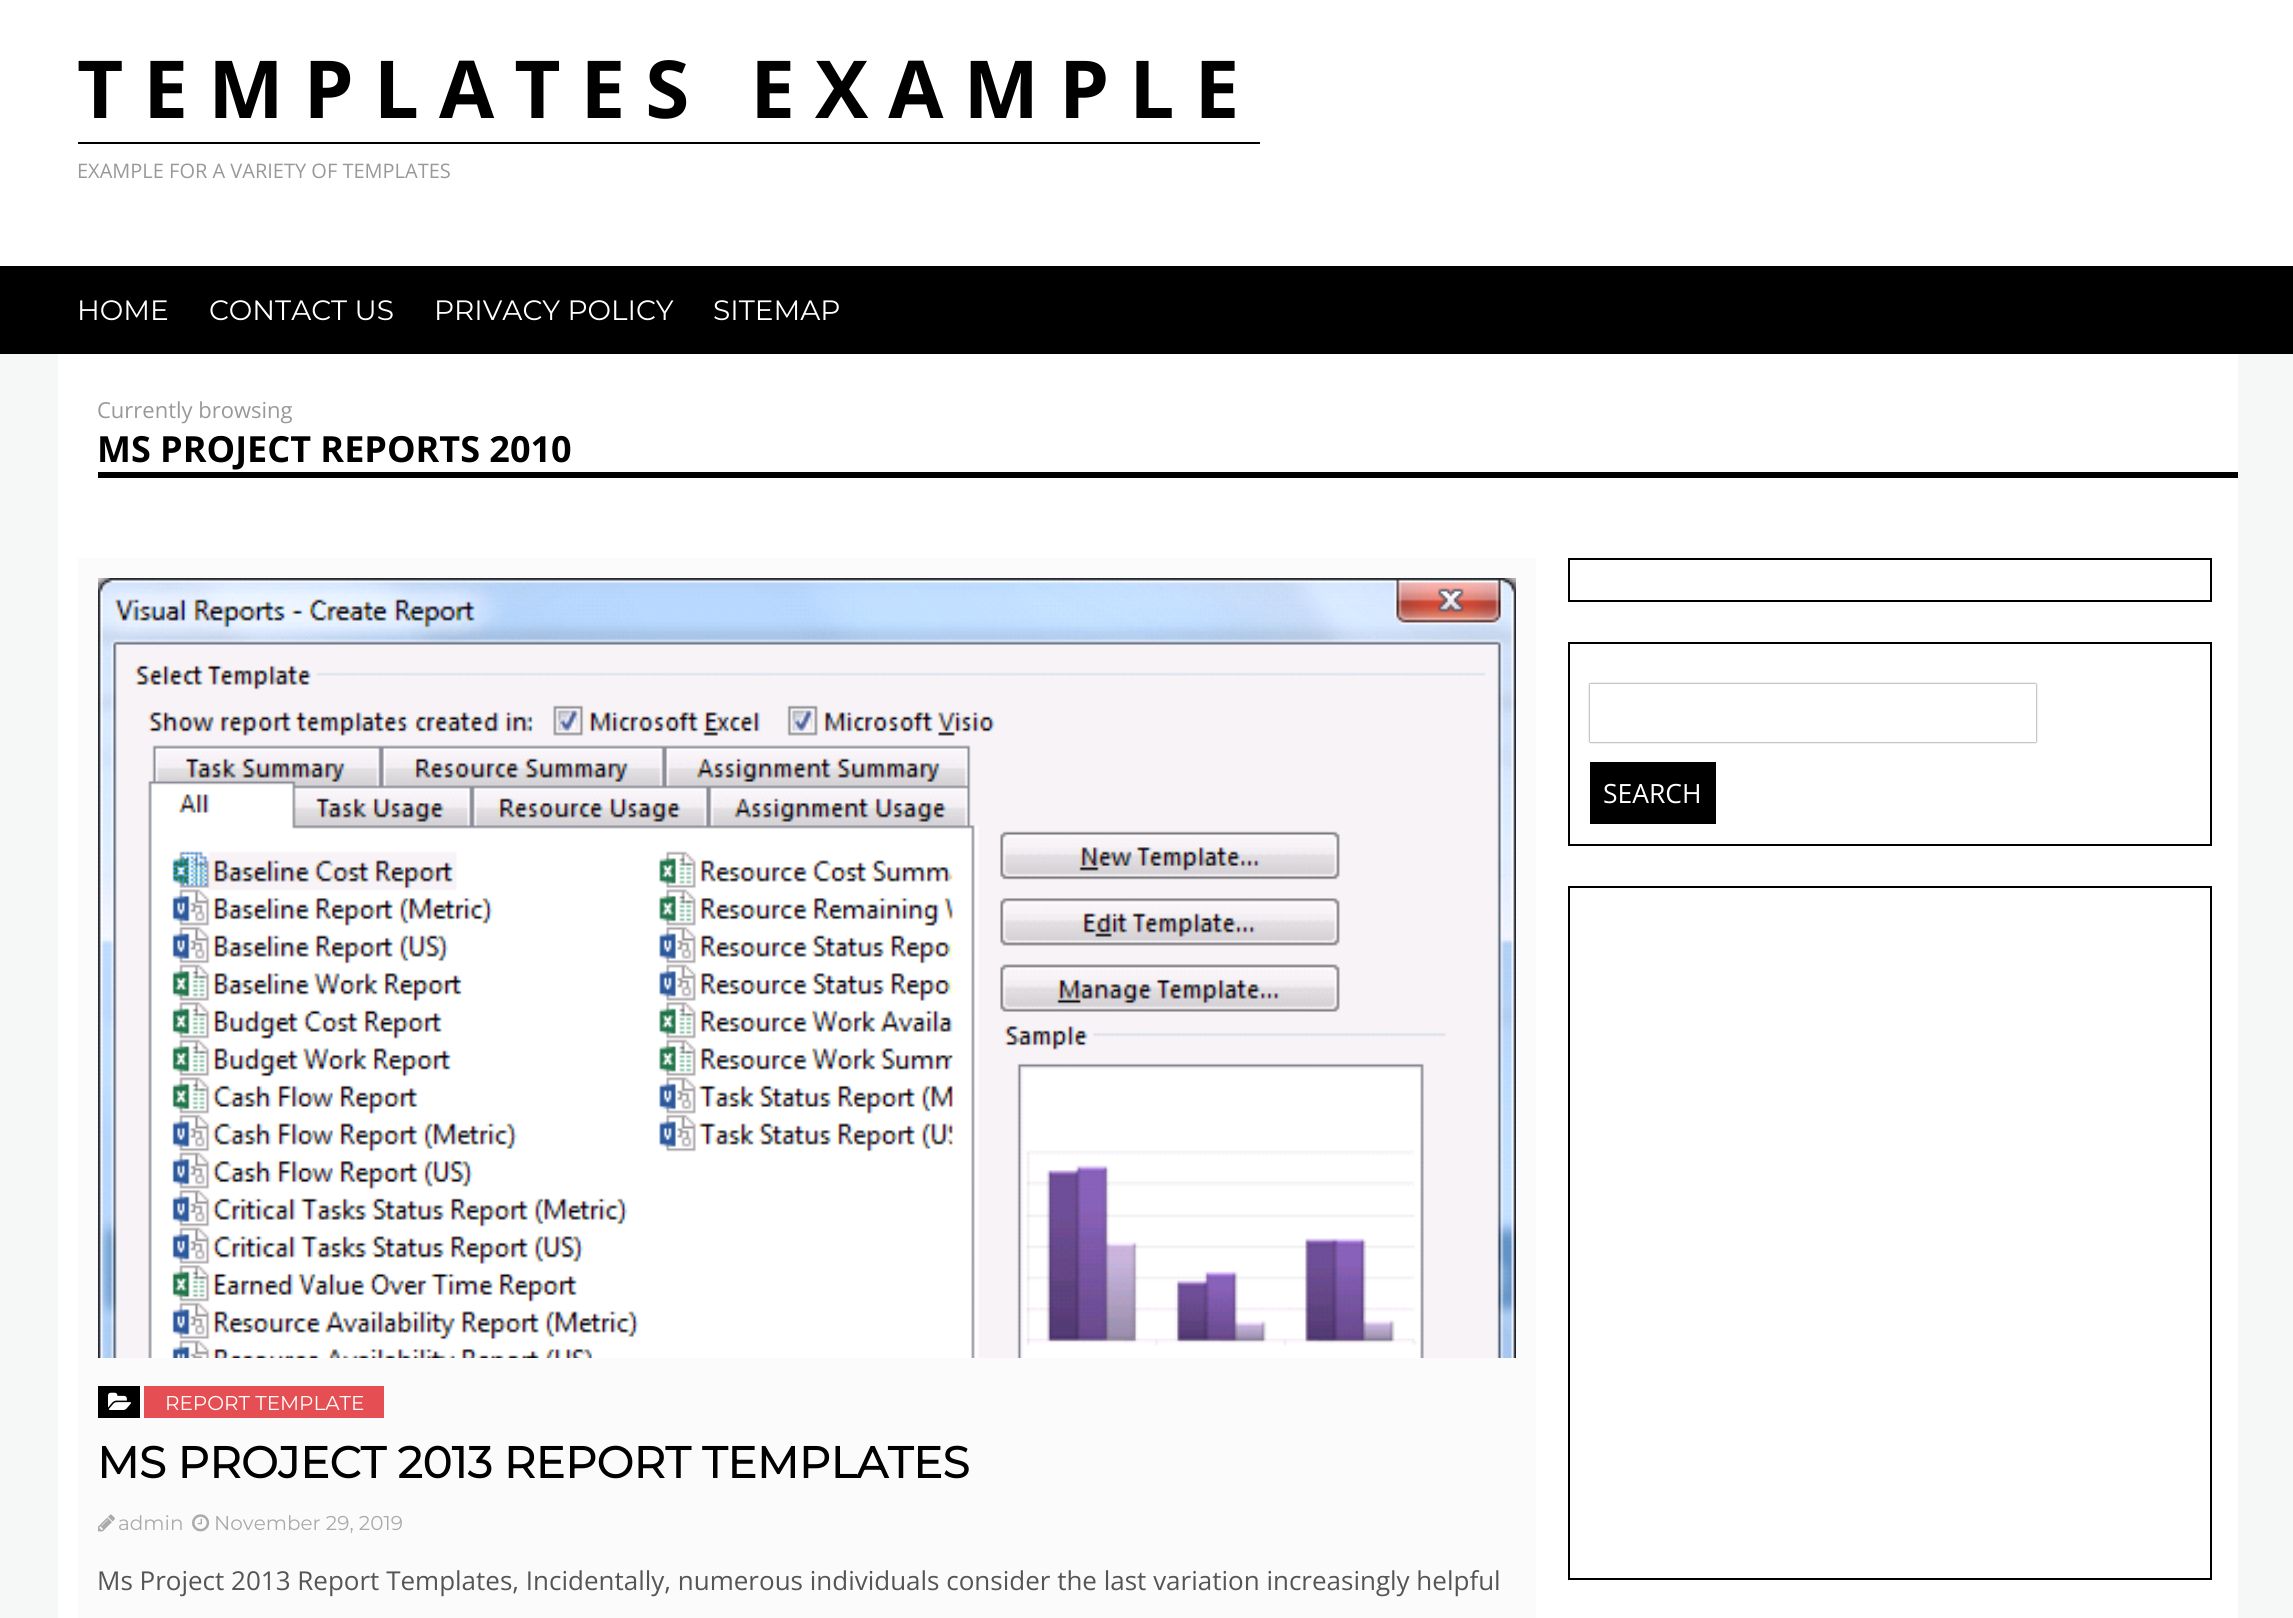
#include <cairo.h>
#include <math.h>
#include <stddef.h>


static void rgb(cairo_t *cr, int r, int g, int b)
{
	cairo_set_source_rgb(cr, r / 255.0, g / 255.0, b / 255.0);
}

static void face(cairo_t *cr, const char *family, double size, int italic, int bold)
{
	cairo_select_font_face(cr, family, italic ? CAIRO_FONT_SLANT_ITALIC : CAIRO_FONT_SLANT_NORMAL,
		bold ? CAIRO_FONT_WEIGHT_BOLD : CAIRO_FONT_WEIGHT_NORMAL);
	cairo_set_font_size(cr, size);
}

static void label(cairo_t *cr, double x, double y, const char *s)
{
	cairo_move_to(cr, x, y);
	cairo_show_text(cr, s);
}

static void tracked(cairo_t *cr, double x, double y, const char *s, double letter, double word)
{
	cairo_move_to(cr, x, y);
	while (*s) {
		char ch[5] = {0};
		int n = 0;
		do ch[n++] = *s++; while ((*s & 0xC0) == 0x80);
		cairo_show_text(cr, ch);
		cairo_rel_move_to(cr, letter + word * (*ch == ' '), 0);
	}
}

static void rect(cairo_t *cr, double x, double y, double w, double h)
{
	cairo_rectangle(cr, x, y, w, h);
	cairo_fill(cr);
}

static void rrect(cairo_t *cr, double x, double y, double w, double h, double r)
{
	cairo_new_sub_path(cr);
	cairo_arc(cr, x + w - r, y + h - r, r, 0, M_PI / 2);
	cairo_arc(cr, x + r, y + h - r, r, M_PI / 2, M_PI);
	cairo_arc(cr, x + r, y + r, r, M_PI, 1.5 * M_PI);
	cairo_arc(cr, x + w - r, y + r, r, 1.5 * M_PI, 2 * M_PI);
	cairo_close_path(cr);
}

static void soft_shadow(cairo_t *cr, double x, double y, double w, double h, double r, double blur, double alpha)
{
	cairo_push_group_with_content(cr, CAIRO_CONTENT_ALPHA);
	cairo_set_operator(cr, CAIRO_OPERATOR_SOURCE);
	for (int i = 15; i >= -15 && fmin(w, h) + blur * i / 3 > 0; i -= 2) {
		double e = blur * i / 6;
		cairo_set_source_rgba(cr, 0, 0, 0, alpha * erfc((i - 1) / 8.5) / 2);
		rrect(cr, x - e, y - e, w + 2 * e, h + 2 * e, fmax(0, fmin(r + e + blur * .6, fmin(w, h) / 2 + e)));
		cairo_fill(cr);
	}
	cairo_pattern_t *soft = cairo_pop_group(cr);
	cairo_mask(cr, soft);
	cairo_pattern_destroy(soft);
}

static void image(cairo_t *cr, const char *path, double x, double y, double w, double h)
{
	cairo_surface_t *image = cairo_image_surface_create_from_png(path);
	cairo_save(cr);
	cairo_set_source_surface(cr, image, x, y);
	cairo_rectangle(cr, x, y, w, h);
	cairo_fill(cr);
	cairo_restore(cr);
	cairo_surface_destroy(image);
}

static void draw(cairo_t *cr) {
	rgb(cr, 246, 248, 248);
	cairo_paint(cr);
	rgb(cr, 255, 255, 255);
	rect(cr, 0, 0, 2293, 266);
	face(cr, "Open Sans", 80, 0, 1);
	rgb(cr, 0, 0, 0);
	tracked(cr, 77, 118, "TEMPLATES EXAMPLE", 20, 0);
	rect(cr, 78, 142, 1182, 2);
	face(cr, "Open Sans", 20, 0, 0);
	rgb(cr, 153, 153, 153);
	label(cr, 77, 178, "EXAMPLE FOR A VARIETY OF TEMPLATES");
	rgb(cr, 0, 0, 0);
	rect(cr, 0, 266, 2293, 88);
	face(cr, "Montserrat Thin", 28, 0, 0);
	rgb(cr, 255, 255, 255);
	label(cr, 77, 320, "HOME");
	label(cr, 209, 320, "CONTACT US");
	label(cr, 434, 320, "PRIVACY POLICY");
	label(cr, 713, 320, "SITEMAP");
	rect(cr, 58, 354, 2180, 1264);
	face(cr, "Open Sans", 22, 0, 0);
	rgb(cr, 153, 153, 153);
	label(cr, 97, 418, "Currently browsing");
	rgb(cr, 0, 0, 0);
	rect(cr, 98, 472, 2140, 6);
	face(cr, "Open Sans", 36, 0, 1);
	label(cr, 97, 462, "MS PROJECT REPORTS 2010");
	cairo_rectangle(cr, 1569, 559, 642, 42);
	cairo_stroke(cr);
	cairo_rectangle(cr, 1569, 643, 642, 202);
	cairo_stroke(cr);
	cairo_save(cr);
	cairo_set_fill_rule(cr, CAIRO_FILL_RULE_EVEN_ODD);
	cairo_new_path(cr);
	cairo_move_to(cr, 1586, 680);
	cairo_line_to(cr, 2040, 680);
	cairo_line_to(cr, 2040, 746);
	cairo_line_to(cr, 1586, 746);
	cairo_close_path(cr);
	cairo_move_to(cr, 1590, 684);
	cairo_line_to(cr, 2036, 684);
	cairo_line_to(cr, 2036, 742);
	cairo_line_to(cr, 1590, 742);
	cairo_close_path(cr);
	cairo_clip(cr);
	rgb(cr, 85, 85, 85);
	soft_shadow(cr, 1590, 684, 446, 58, 0, 1, 1);
	cairo_restore(cr);
	rect(cr, 1590, 762, 126, 62);
	face(cr, "Open Sans", 26.5, 0, 0);
	rgb(cr, 255, 255, 255);
	label(cr, 1603, 803, "SEARCH");
	cairo_rectangle(cr, 1569, 887, 642, 692);
	rgb(cr, 0, 0, 0);
	cairo_stroke(cr);
	rgb(cr, 251, 251, 251);
	rect(cr, 78, 558, 1458, 1060);
	image(cr, "image0.png", 98, 578, 1418, 780);
	rgb(cr, 0, 0, 0);
	rect(cr, 98, 1386, 42, 32);
	image(cr, "image1.png", 108, 1392, 23, 18);
	rgb(cr, 229, 78, 83);
	rect(cr, 144, 1386, 240, 32);
	face(cr, "Montserrat Thin", 20, 0, 0);
	rgb(cr, 255, 255, 255);
	label(cr, 165, 1410, "REPORT TEMPLATE");
	face(cr, "Montserrat", 44, 0, 1);
	rgb(cr, 0, 0, 0);
	label(cr, 97, 1478, "MS PROJECT 2013 REPORT TEMPLATES");
	image(cr, "image2.png", 98, 1514, 17, 18);
	face(cr, "Montserrat Thin", 20, 0, 0);
	rgb(cr, 170, 170, 170);
	label(cr, 118, 1530, "admin");
	image(cr, "image3.png", 192, 1514, 18, 18);
	label(cr, 214, 1530, "November 29, 2019");
	face(cr, "Open Sans", 26, 0, 0);
	rgb(cr, 85, 85, 85);
	label(cr, 97, 1590, "Ms Project 2013 Report Templates, Incidentally, numerous individuals consider the last variation increasingly helpful");
}

int main(void) {
	cairo_surface_t *surface = cairo_image_surface_create(CAIRO_FORMAT_RGB24, 2293, 1618);
	cairo_t *cr = cairo_create(surface);
	cairo_font_options_t *options = cairo_font_options_create();
	cairo_font_options_set_hint_metrics(options, CAIRO_HINT_METRICS_OFF);
	cairo_font_options_set_hint_style(options, CAIRO_HINT_STYLE_NONE);
	cairo_set_font_options(cr, options);
	cairo_set_miter_limit(cr, 4);
	draw(cr);
	cairo_surface_write_to_png(surface, "render.png");
	cairo_font_options_destroy(options);
	cairo_destroy(cr);
	cairo_surface_destroy(surface);
	return 0;
}
